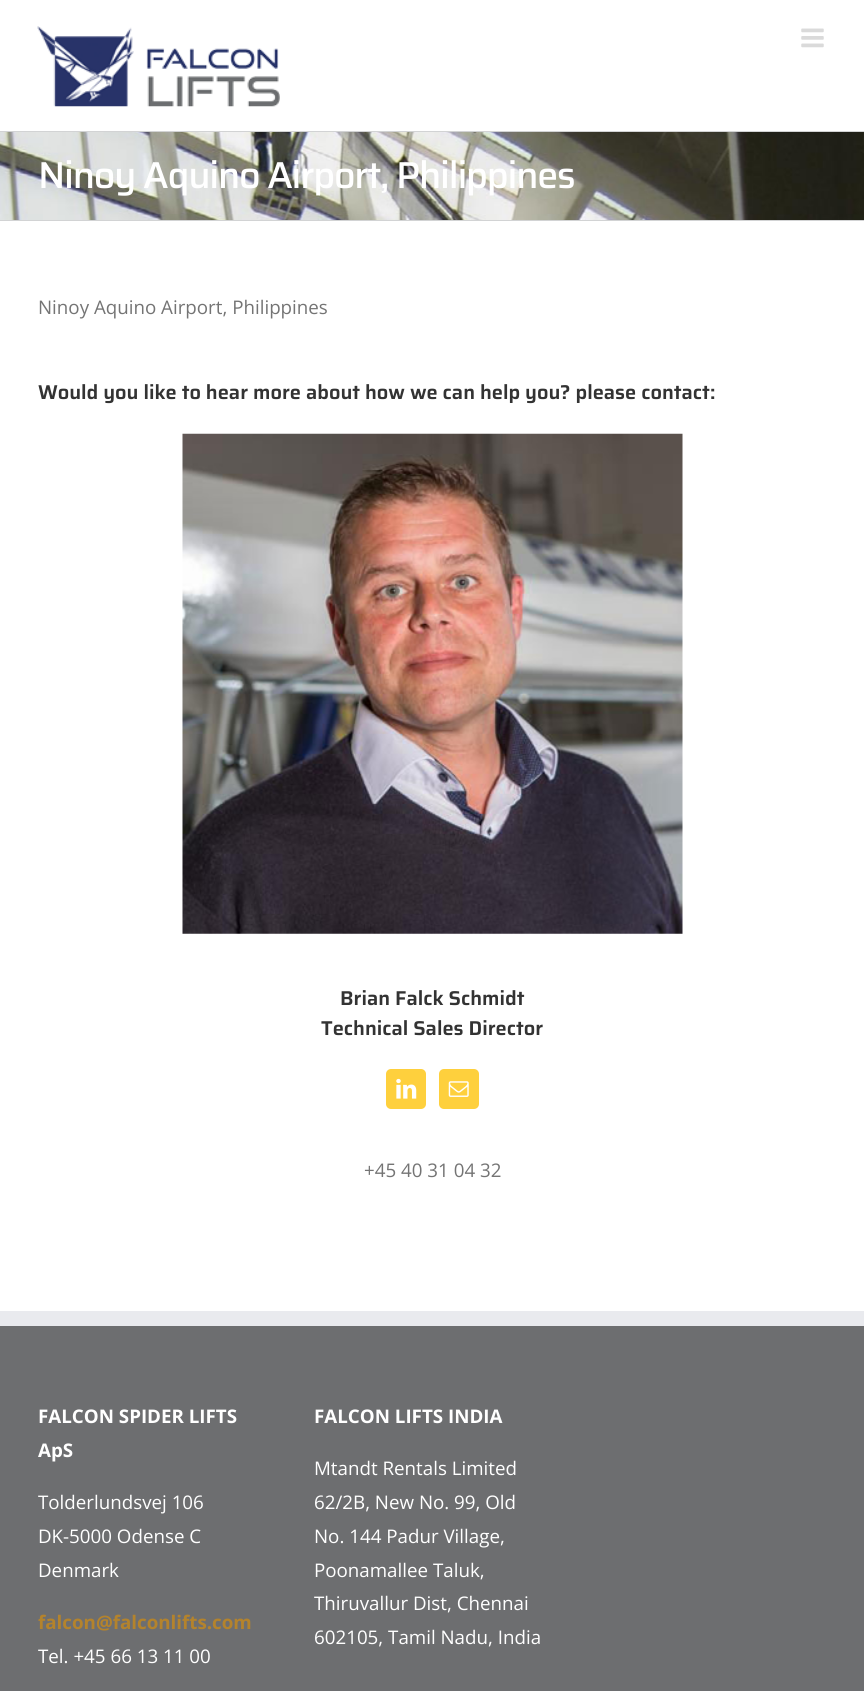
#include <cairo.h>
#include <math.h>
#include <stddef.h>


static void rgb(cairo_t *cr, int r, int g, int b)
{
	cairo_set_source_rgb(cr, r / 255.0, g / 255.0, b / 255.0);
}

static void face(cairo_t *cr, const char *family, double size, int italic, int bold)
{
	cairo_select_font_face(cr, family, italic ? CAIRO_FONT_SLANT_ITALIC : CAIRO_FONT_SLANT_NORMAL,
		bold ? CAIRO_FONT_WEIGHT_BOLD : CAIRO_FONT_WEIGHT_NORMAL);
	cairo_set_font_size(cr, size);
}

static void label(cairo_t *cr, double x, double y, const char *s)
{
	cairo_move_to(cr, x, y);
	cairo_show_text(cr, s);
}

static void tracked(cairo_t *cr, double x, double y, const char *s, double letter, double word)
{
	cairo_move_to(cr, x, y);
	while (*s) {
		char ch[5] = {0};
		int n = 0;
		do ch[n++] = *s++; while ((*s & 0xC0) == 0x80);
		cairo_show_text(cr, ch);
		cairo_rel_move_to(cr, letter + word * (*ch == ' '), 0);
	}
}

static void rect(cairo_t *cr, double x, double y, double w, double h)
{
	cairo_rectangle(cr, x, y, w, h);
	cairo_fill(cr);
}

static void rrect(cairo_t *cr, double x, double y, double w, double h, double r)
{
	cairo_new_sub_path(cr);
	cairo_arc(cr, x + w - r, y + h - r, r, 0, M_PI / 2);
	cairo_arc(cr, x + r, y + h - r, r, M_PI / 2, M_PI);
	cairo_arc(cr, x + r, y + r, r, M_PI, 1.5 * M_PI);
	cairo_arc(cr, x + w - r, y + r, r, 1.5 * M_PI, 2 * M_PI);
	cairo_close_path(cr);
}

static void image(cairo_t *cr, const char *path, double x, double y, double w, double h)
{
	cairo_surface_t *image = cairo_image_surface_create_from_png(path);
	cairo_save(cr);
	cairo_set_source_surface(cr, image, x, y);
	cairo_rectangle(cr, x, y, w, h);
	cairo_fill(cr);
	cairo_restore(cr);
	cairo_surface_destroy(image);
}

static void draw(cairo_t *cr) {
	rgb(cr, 255, 255, 255);
	cairo_paint(cr);
	image(cr, "image0.png", 37, 26, 243, 81);
	image(cr, "image1.png", 801, 28, 23, 20);
	image(cr, "image2.png", 0, 132, 864, 88);
	rgb(cr, 210, 211, 212);
	rect(cr, 0, 131, 864, 1);
	rect(cr, 0, 220, 864, 1);
	face(cr, "Saira Medium", 37.5, 0, 0);
	rgb(cr, 255, 255, 255);
	tracked(cr, 38, 188, "Ninoy Aquino Airport, Philippines", -1.25, 0);
	face(cr, "Open Sans", 18.75, 0, 0);
	rgb(cr, 116, 116, 116);
	label(cr, 38, 314, "Ninoy Aquino Airport, Philippines");
	face(cr, "Saira SemiBold", 20, 0, 0);
	rgb(cr, 51, 51, 51);
	label(cr, 38, 399, "Would you like to hear more about how we can help you? please contact:");
	image(cr, "image3.png", 182, 433, 501, 501);
	label(cr, 340, 1005, "Brian Falck Schmidt");
	label(cr, 321, 1035, "Technical Sales Director");
	rgb(cr, 254, 208, 61);
	rrect(cr, 386, 1069, 40, 40, 5);
	cairo_fill(cr);
	image(cr, "image4.png", 396, 1078, 21, 21);
	rrect(cr, 439, 1069, 40, 40, 5);
	cairo_fill(cr);
	image(cr, "image5.png", 448, 1081, 21, 16);
	face(cr, "Open Sans", 18.75, 0, 0);
	rgb(cr, 116, 116, 116);
	label(cr, 364, 1177, "+45 40 31 04 32");
	rgb(cr, 109, 110, 112);
	rect(cr, 0, 1326, 864, 365);
	rgb(cr, 233, 234, 238);
	rect(cr, 0, 1311, 864, 15);
	face(cr, "Open Sans", 18.75, 0, 1);
	rgb(cr, 255, 255, 255);
	label(cr, 38, 1423, "FALCON SPIDER LIFTS");
	label(cr, 38, 1457, "ApS");
	face(cr, "Open Sans", 18.75, 0, 0);
	label(cr, 38, 1509, "Tolderlundsvej 106");
	label(cr, 38, 1543, "DK-5000 Odense C");
	label(cr, 38, 1577, "Denmark");
	face(cr, "Open Sans", 18.75, 0, 1);
	rgb(cr, 180, 131, 44);
	label(cr, 38, 1629, "falcon@falconlifts.com");
	face(cr, "Open Sans", 18.75, 0, 0);
	rgb(cr, 255, 255, 255);
	label(cr, 38, 1663, "Tel. +45 66 13 11 00");
	face(cr, "Open Sans", 18.75, 0, 1);
	label(cr, 314, 1423, "FALCON LIFTS INDIA");
	face(cr, "Open Sans", 18.75, 0, 0);
	label(cr, 314, 1475, "Mtandt Rentals Limited");
	label(cr, 314, 1509, "62/2B, New No. 99, Old");
	label(cr, 314, 1543, "No. 144 Padur Village,");
	label(cr, 314, 1577, "Poonamallee Taluk,");
	label(cr, 314, 1610, "Thiruvallur Dist, Chennai");
	label(cr, 314, 1644, "602105, Tamil Nadu, India");
}

int main(void) {
	cairo_surface_t *surface = cairo_image_surface_create(CAIRO_FORMAT_RGB24, 864, 1691);
	cairo_t *cr = cairo_create(surface);
	cairo_font_options_t *options = cairo_font_options_create();
	cairo_font_options_set_hint_metrics(options, CAIRO_HINT_METRICS_OFF);
	cairo_font_options_set_hint_style(options, CAIRO_HINT_STYLE_NONE);
	cairo_set_font_options(cr, options);
	cairo_set_miter_limit(cr, 4);
	draw(cr);
	cairo_surface_write_to_png(surface, "render.png");
	cairo_font_options_destroy(options);
	cairo_destroy(cr);
	cairo_surface_destroy(surface);
	return 0;
}
